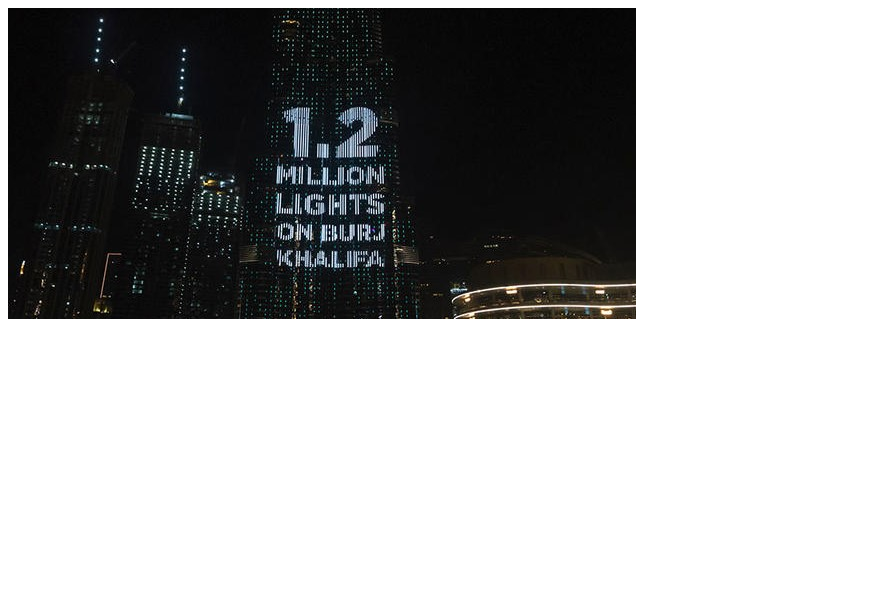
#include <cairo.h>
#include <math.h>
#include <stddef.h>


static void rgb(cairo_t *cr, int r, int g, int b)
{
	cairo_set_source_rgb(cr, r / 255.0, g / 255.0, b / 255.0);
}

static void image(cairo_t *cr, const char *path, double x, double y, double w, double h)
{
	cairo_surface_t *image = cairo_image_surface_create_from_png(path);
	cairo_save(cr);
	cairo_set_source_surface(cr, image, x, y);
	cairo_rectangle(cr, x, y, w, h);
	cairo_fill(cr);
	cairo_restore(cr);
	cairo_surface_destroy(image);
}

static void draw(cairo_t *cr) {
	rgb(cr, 255, 255, 255);
	cairo_paint(cr);
	image(cr, "image0.png", 8, 8, 628, 311);
}

int main(void) {
	cairo_surface_t *surface = cairo_image_surface_create(CAIRO_FORMAT_RGB24, 877, 608);
	cairo_t *cr = cairo_create(surface);
	cairo_font_options_t *options = cairo_font_options_create();
	cairo_font_options_set_hint_metrics(options, CAIRO_HINT_METRICS_OFF);
	cairo_font_options_set_hint_style(options, CAIRO_HINT_STYLE_NONE);
	cairo_set_font_options(cr, options);
	cairo_set_miter_limit(cr, 4);
	draw(cr);
	cairo_surface_write_to_png(surface, "render.png");
	cairo_font_options_destroy(options);
	cairo_destroy(cr);
	cairo_surface_destroy(surface);
	return 0;
}
